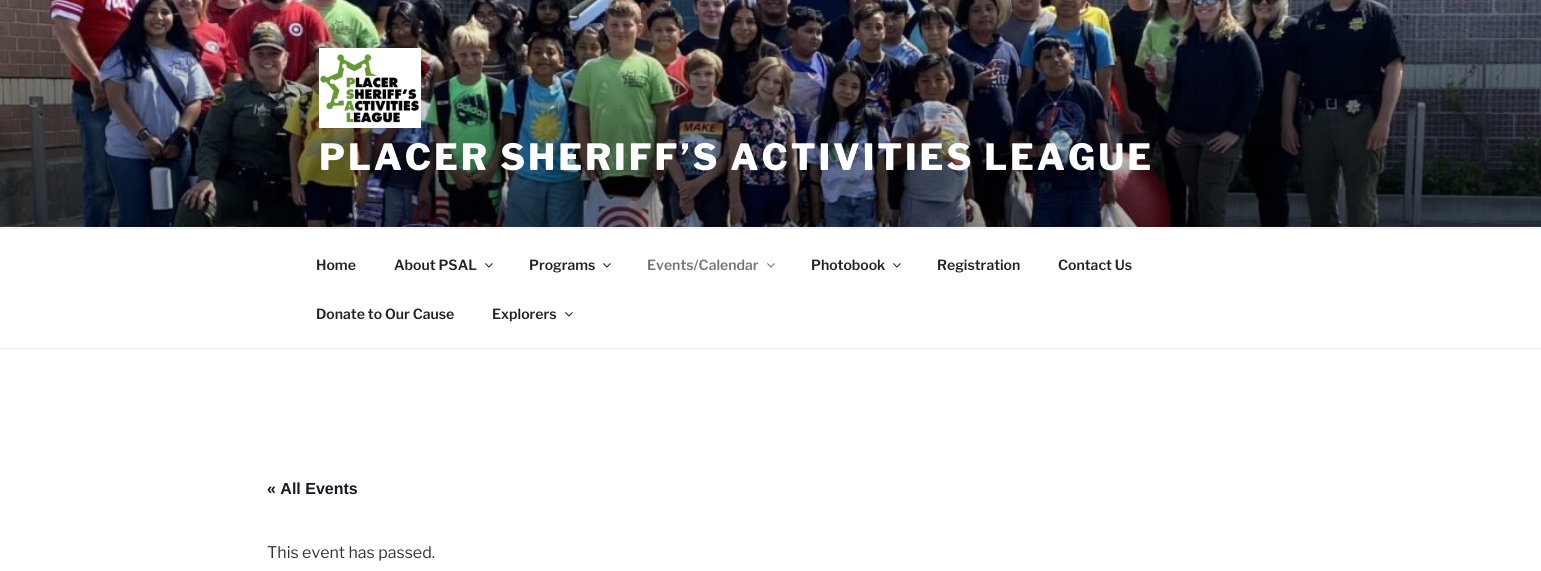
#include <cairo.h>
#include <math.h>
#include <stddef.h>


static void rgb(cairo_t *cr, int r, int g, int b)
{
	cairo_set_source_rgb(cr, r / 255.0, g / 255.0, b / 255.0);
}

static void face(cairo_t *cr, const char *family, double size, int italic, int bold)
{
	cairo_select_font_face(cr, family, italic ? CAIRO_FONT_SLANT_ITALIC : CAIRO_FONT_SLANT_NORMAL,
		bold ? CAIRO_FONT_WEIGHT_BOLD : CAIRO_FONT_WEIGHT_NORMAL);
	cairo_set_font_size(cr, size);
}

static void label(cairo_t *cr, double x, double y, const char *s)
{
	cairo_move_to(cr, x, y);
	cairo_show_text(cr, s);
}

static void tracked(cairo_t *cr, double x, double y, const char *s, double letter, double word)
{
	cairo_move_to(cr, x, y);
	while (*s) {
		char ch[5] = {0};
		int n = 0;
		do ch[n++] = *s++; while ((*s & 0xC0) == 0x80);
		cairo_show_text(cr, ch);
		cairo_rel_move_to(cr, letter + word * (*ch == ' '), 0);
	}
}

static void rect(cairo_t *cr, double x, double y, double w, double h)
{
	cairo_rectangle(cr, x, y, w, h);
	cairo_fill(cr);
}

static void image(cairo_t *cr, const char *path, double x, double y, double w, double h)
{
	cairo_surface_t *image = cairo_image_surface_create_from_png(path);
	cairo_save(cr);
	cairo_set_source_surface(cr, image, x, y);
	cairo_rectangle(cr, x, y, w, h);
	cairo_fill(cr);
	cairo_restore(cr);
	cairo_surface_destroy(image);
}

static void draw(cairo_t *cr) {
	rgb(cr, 255, 255, 255);
	cairo_paint(cr);
	rgb(cr, 250, 250, 250);
	rect(cr, 0, 227, 1541, 1);
	image(cr, "image0.png", 0, 0, 1541, 227);
	image(cr, "image1.png", 319, 48, 102, 80);
	face(cr, "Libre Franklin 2 Thin", 36, 0, 0);
	rgb(cr, 255, 255, 255);
	tracked(cr, 319, 170, "PLACER SHERIFF’S ACTIVITIES LEAGUE", 2.9, 0);
	rgb(cr, 238, 238, 238);
	rect(cr, 0, 228, 1541, 1);
	rect(cr, 0, 348, 1541, 1);
	face(cr, "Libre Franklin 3 Thin", 14, 0, 0);
	rgb(cr, 34, 34, 34);
	label(cr, 316, 270, "Home");
	label(cr, 394, 270, "About PSAL");
	image(cr, "image2.png", 485, 263, 8, 5);
	label(cr, 529, 270, "Programs");
	image(cr, "image2.png", 603, 263, 8, 5);
	rgb(cr, 118, 118, 118);
	label(cr, 647, 270, "Events/Calendar");
	image(cr, "image3.png", 767, 263, 8, 5);
	rgb(cr, 34, 34, 34);
	label(cr, 811, 270, "Photobook");
	image(cr, "image2.png", 893, 263, 8, 5);
	label(cr, 937, 270, "Registration");
	label(cr, 1058, 270, "Contact Us");
	label(cr, 316, 319, "Donate to Our Cause");
	label(cr, 492, 319, "Explorers");
	image(cr, "image2.png", 565, 312, 8, 5);
	face(cr, "Liberation Sans", 16, 0, 1);
	rgb(cr, 20, 24, 39);
	label(cr, 267, 494, "« All Events");
	face(cr, "Libre Franklin Thin", 16, 0, 0);
	rgb(cr, 51, 51, 51);
	label(cr, 267, 558, "This event has passed.");
}

int main(void) {
	cairo_surface_t *surface = cairo_image_surface_create(CAIRO_FORMAT_RGB24, 1541, 571);
	cairo_t *cr = cairo_create(surface);
	cairo_font_options_t *options = cairo_font_options_create();
	cairo_font_options_set_hint_metrics(options, CAIRO_HINT_METRICS_OFF);
	cairo_font_options_set_hint_style(options, CAIRO_HINT_STYLE_NONE);
	cairo_set_font_options(cr, options);
	cairo_set_miter_limit(cr, 4);
	draw(cr);
	cairo_surface_write_to_png(surface, "render.png");
	cairo_font_options_destroy(options);
	cairo_destroy(cr);
	cairo_surface_destroy(surface);
	return 0;
}
